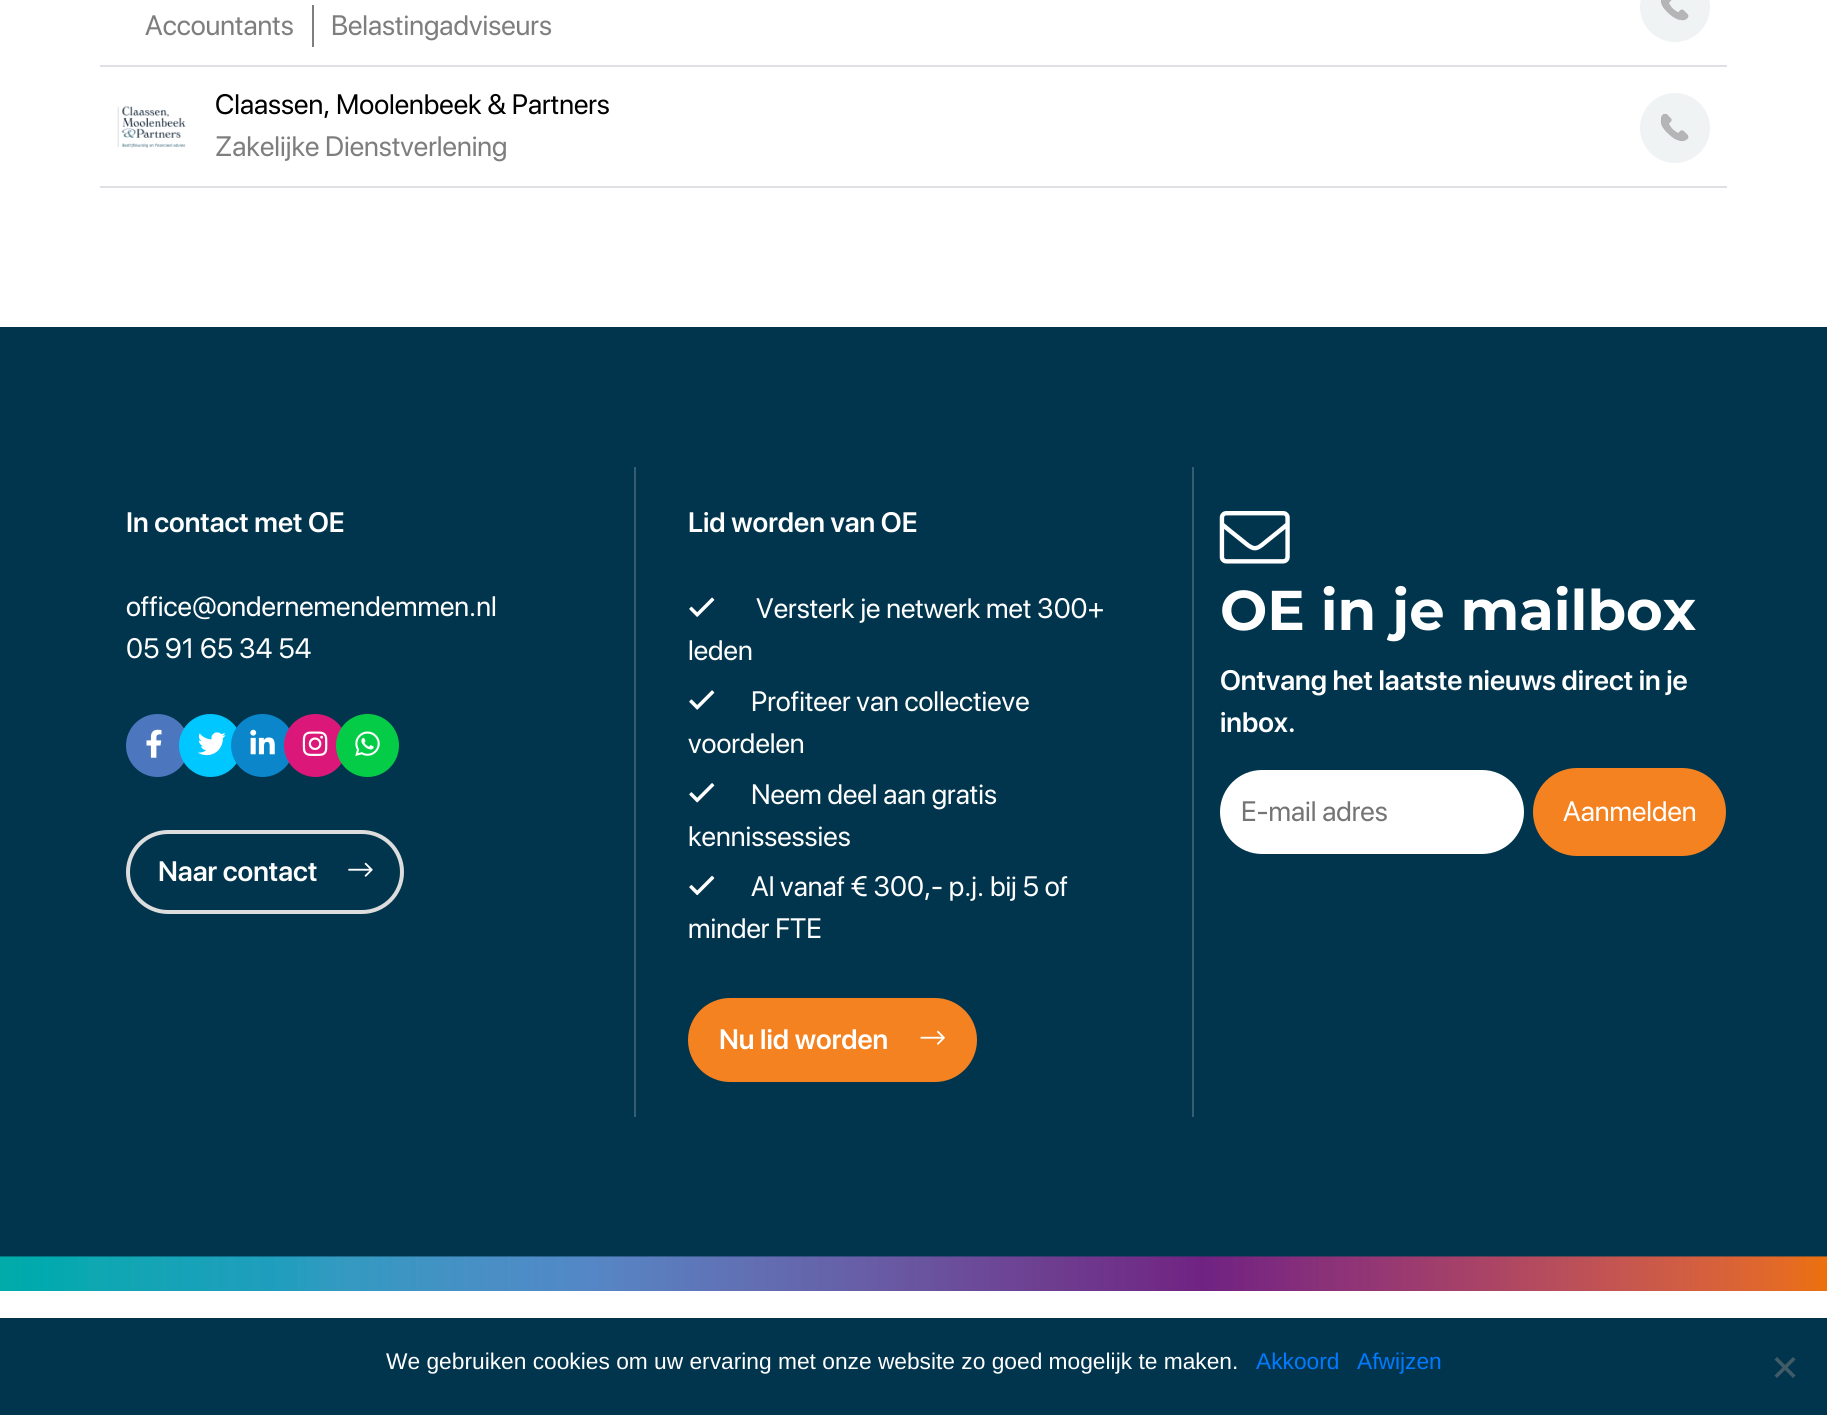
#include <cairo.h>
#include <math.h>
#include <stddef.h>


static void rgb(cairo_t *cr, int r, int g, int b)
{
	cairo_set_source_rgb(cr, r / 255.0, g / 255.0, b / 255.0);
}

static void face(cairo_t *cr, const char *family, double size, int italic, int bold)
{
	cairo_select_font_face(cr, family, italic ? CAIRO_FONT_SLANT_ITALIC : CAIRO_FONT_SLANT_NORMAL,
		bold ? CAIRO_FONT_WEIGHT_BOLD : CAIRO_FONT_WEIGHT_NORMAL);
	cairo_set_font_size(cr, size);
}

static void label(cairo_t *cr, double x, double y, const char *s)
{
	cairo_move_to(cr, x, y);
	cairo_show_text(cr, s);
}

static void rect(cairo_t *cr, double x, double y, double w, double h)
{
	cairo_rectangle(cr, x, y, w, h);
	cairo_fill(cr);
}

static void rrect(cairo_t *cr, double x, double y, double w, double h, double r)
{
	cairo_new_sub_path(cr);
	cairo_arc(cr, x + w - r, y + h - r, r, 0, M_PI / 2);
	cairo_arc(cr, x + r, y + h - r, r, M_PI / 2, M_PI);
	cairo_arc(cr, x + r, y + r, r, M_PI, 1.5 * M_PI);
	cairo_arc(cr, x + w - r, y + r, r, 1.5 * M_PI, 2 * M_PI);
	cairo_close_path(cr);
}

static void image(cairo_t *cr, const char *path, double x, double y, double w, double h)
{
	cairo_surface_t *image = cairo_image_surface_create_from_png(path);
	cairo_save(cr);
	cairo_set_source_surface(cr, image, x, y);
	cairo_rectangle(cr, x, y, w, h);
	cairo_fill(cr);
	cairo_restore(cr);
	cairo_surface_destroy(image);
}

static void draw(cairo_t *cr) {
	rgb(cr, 255, 255, 255);
	cairo_paint(cr);
	rgb(cr, 222, 224, 227);
	rect(cr, 100, 65, 1627, 2);
	face(cr, "SF Pro Display", 28, 0, 0);
	rgb(cr, 126, 126, 126);
	label(cr, 145, 35, "Accountants");
	rect(cr, 312, 5, 2, 42);
	label(cr, 331, 35, "Belastingadviseurs");
	rgb(cr, 239, 243, 244);
	cairo_new_path(cr);
	cairo_arc(cr, 1675, 7, 35, 0, 2 * M_PI);
	cairo_fill(cr);
	image(cr, "image0.png", 1661, 0, 28, 21);
	rgb(cr, 222, 224, 227);
	rect(cr, 100, 186, 1627, 2);
	image(cr, "image1.png", 117, 106, 69, 42);
	rgb(cr, 0, 0, 0);
	label(cr, 215, 114, "Claassen, Moolenbeek & Partners");
	rgb(cr, 126, 126, 126);
	label(cr, 215, 156, "Zakelijke Dienstverlening");
	rgb(cr, 239, 243, 244);
	cairo_new_path(cr);
	cairo_arc(cr, 1675, 128, 35, 0, 2 * M_PI);
	cairo_fill(cr);
	image(cr, "image2.png", 1661, 114, 28, 27);
	rgb(cr, 1, 53, 77);
	rect(cr, 0, 327, 1827, 930);
	face(cr, "SF Pro Display SemiBold", 28, 0, 0);
	rgb(cr, 255, 255, 255);
	label(cr, 126, 532, "In contact met OE");
	face(cr, "SF Pro Display", 28, 0, 0);
	label(cr, 126, 616, "office@ondernemendemmen.nl");
	label(cr, 126, 658, "05 91 65 34 54");
	rgb(cr, 76, 118, 190);
	cairo_new_path(cr);
	cairo_arc(cr, 157.5, 745.5, 31.5, 0, 2 * M_PI);
	cairo_fill(cr);
	image(cr, "image3.png", 146, 729, 16, 29);
	rgb(cr, 0, 199, 255);
	cairo_arc(cr, 210.5, 745.5, 31.5, 0, 2 * M_PI);
	cairo_fill(cr);
	image(cr, "image4.png", 197, 732, 29, 24);
	rgb(cr, 11, 134, 202);
	cairo_arc(cr, 262.5, 745.5, 31.5, 0, 2 * M_PI);
	cairo_fill(cr);
	image(cr, "image5.png", 250, 729, 25, 26);
	rgb(cr, 219, 24, 122);
	cairo_arc(cr, 315.5, 745.5, 31.5, 0, 2 * M_PI);
	cairo_fill(cr);
	image(cr, "image6.png", 302, 731, 26, 25);
	rgb(cr, 5, 204, 71);
	cairo_arc(cr, 367.5, 745.5, 31.5, 0, 2 * M_PI);
	cairo_fill(cr);
	image(cr, "image7.png", 355, 731, 25, 25);
	rrect(cr, 128, 832, 274, 80, 40);
	rgb(cr, 221, 221, 221);
	cairo_set_line_width(cr, 4);
	cairo_stroke(cr);
	face(cr, "SF Pro Display SemiBold", 28, 0, 0);
	rgb(cr, 255, 255, 255);
	label(cr, 158, 881, "Naar contact");
	image(cr, "image8.png", 348, 862, 25, 15);
	rgb(cr, 52, 93, 113);
	rect(cr, 1192, 467, 2, 650);
	rect(cr, 634, 467, 2, 650);
	rgb(cr, 255, 255, 255);
	label(cr, 688, 532, "Lid worden van OE");
	image(cr, "image9.png", 689, 597, 26, 20);
	face(cr, "SF Pro Display", 28, 0, 0);
	label(cr, 756, 618, "Versterk je netwerk met 300+");
	label(cr, 688, 660, "leden");
	image(cr, "image10.png", 689, 690, 26, 20);
	label(cr, 751, 711, "Profiteer van collectieve");
	label(cr, 688, 753, "voordelen");
	image(cr, "image11.png", 689, 783, 26, 20);
	label(cr, 751, 804, "Neem deel aan gratis");
	label(cr, 688, 846, "kennissessies");
	image(cr, "image12.png", 689, 875, 26, 21);
	label(cr, 751, 896, "Al vanaf € 300,- p.j. bij 5 of");
	label(cr, 688, 938, "minder FTE");
	rgb(cr, 245, 130, 32);
	rrect(cr, 690, 1000, 285, 80, 40);
	cairo_fill_preserve(cr);
	cairo_stroke(cr);
	face(cr, "SF Pro Display SemiBold", 28, 0, 0);
	rgb(cr, 255, 255, 255);
	label(cr, 719, 1049, "Nu lid worden");
	image(cr, "image13.png", 920, 1030, 25, 15);
	image(cr, "image14.png", 1219, 511, 71, 53);
	face(cr, "Montserrat", 56, 0, 1);
	label(cr, 1220, 630, "OE in je mailbox");
	face(cr, "SF Pro Display SemiBold", 28, 0, 0);
	label(cr, 1220, 690, "Ontvang het laatste nieuws direct in je");
	label(cr, 1220, 732, "inbox.");
	rrect(cr, 1222, 772, 300, 80, 40);
	cairo_fill_preserve(cr);
	cairo_stroke(cr);
	face(cr, "SF Pro Display", 28, 0, 0);
	rgb(cr, 117, 117, 117);
	label(cr, 1241, 821, "E-mail adres");
	rgb(cr, 245, 130, 32);
	rrect(cr, 1535, 770, 189, 84, 42);
	cairo_fill_preserve(cr);
	cairo_stroke(cr);
	rgb(cr, 255, 255, 255);
	label(cr, 1563, 821, "Aanmelden");
	image(cr, "image15.png", 0, 1256, 1827, 35);
	rgb(cr, 1, 53, 77);
	rect(cr, 0, 1318, 1827, 97);
	face(cr, "Liberation Sans", 22.75, 0, 0);
	rgb(cr, 255, 255, 255);
	label(cr, 386, 1369, "We gebruiken cookies om uw ervaring met onze website zo goed mogelijk te maken.");
	rgb(cr, 0, 123, 255);
	label(cr, 1256, 1369, "Akkoord");
	label(cr, 1357, 1369, "Afwijzen");
	rgb(cr, 65, 91, 103);
	cairo_new_path(cr);
	cairo_move_to(cr, 1793, 1357);
	cairo_line_to(cr, 1795.5, 1359.5);
	cairo_line_to(cr, 1777, 1378);
	cairo_line_to(cr, 1774.5, 1375.5);
	cairo_close_path(cr);
	cairo_fill(cr);
	cairo_new_path(cr);
	cairo_move_to(cr, 1774.5, 1359.5);
	cairo_line_to(cr, 1777, 1357);
	cairo_line_to(cr, 1795.5, 1375.5);
	cairo_line_to(cr, 1793, 1378);
	cairo_close_path(cr);
	cairo_fill(cr);
}

int main(void) {
	cairo_surface_t *surface = cairo_image_surface_create(CAIRO_FORMAT_RGB24, 1827, 1415);
	cairo_t *cr = cairo_create(surface);
	cairo_font_options_t *options = cairo_font_options_create();
	cairo_font_options_set_hint_metrics(options, CAIRO_HINT_METRICS_OFF);
	cairo_font_options_set_hint_style(options, CAIRO_HINT_STYLE_NONE);
	cairo_set_font_options(cr, options);
	cairo_set_miter_limit(cr, 4);
	draw(cr);
	cairo_surface_write_to_png(surface, "render.png");
	cairo_font_options_destroy(options);
	cairo_destroy(cr);
	cairo_surface_destroy(surface);
	return 0;
}
